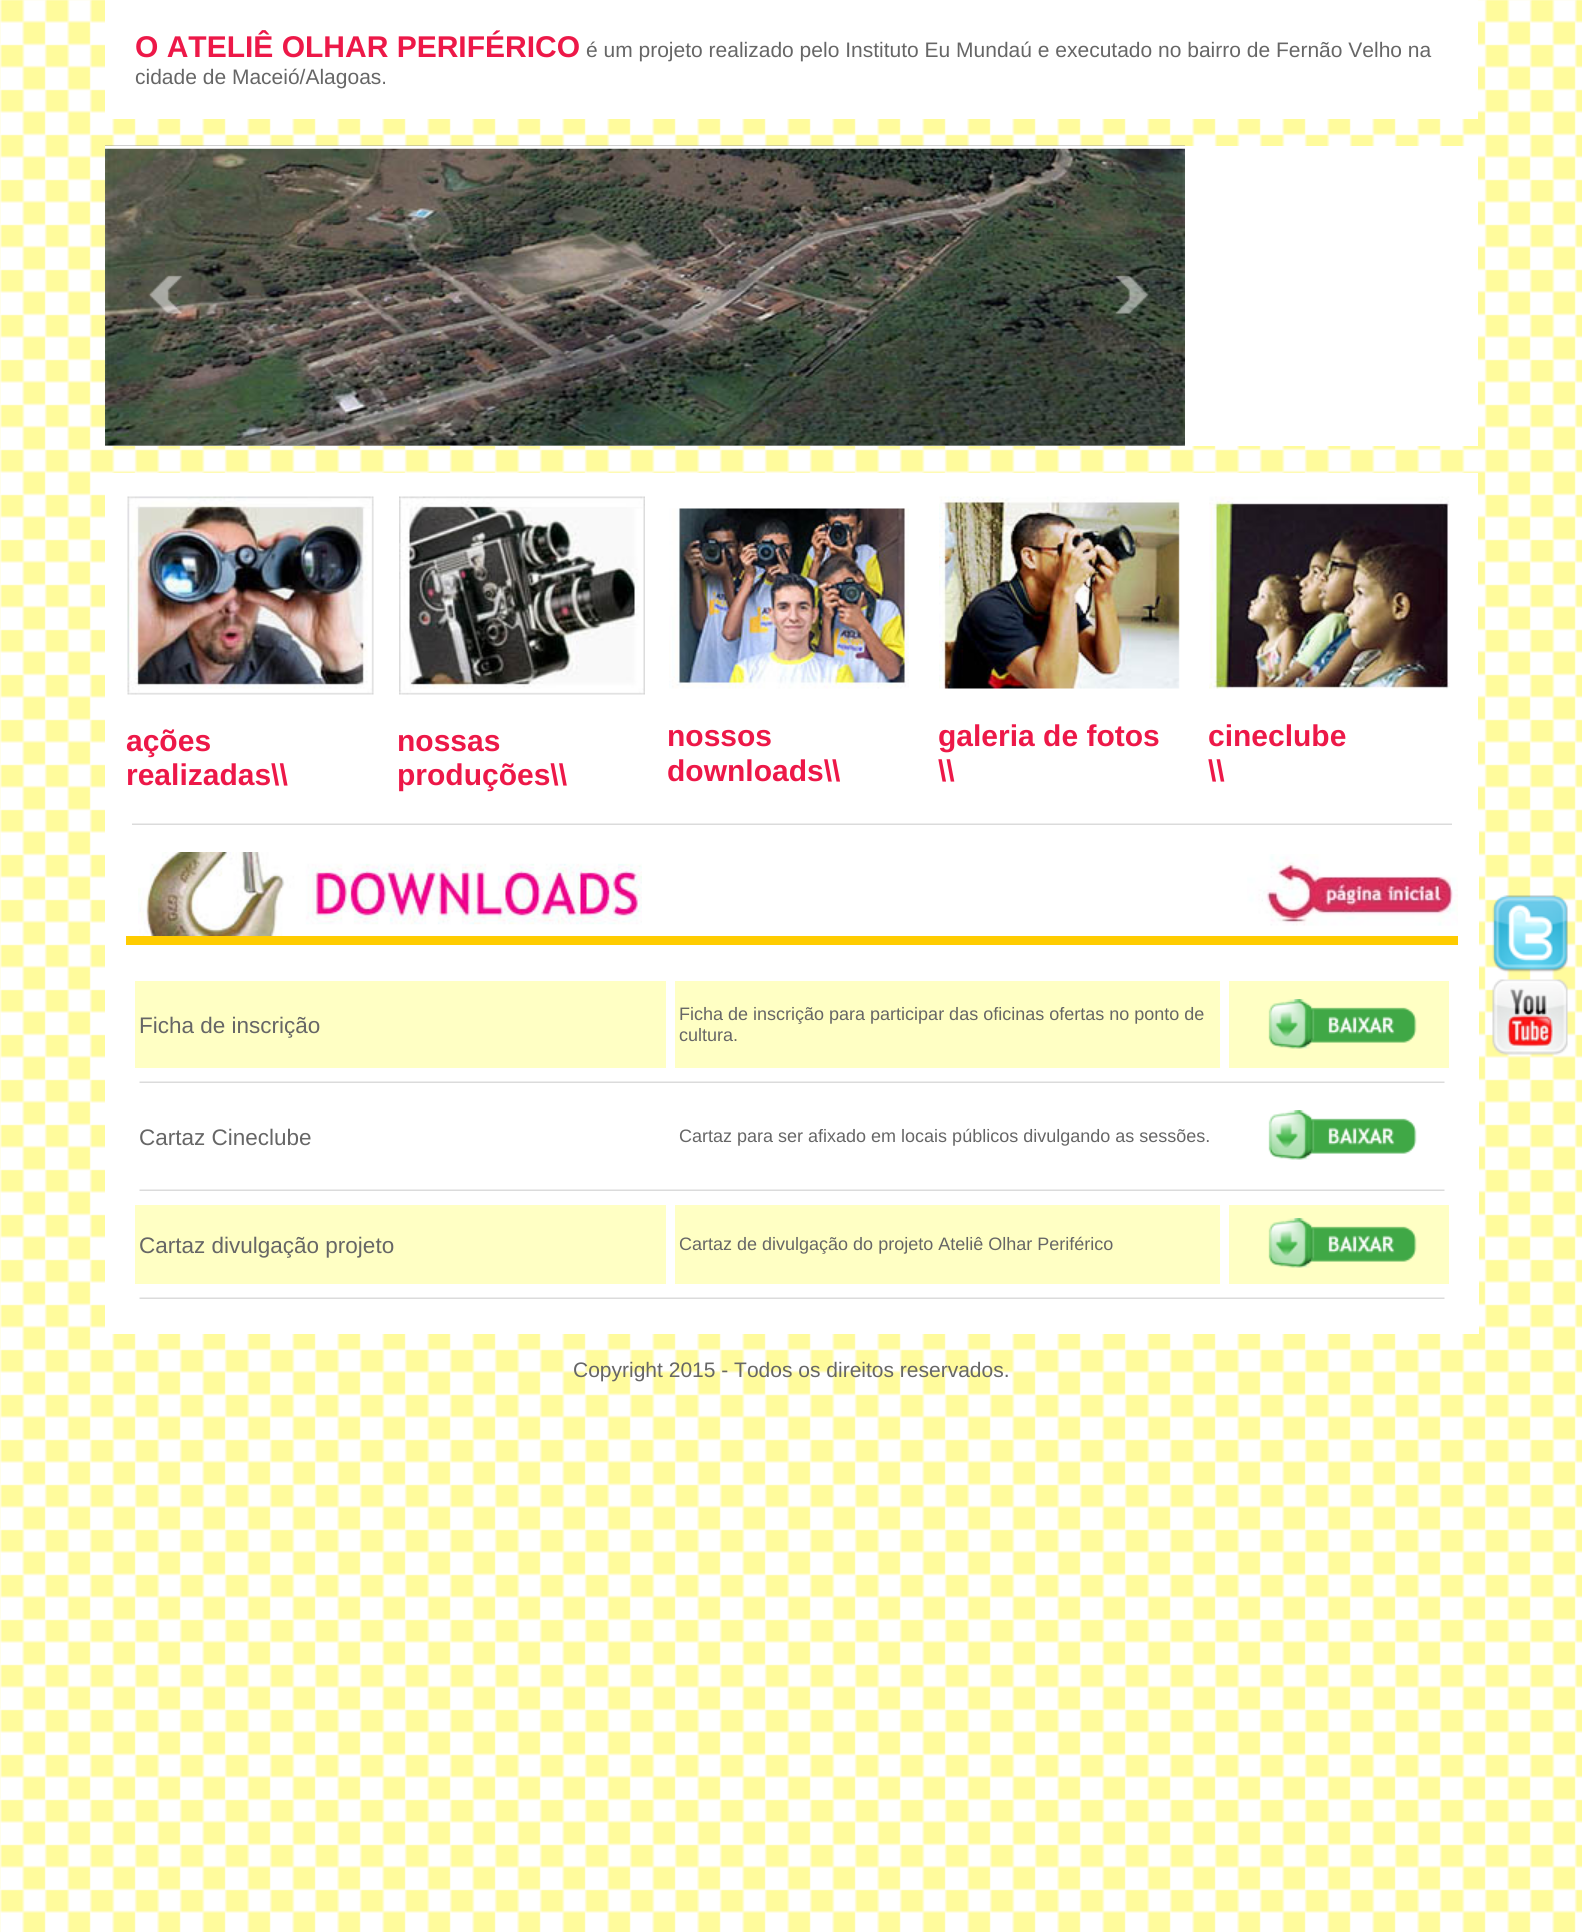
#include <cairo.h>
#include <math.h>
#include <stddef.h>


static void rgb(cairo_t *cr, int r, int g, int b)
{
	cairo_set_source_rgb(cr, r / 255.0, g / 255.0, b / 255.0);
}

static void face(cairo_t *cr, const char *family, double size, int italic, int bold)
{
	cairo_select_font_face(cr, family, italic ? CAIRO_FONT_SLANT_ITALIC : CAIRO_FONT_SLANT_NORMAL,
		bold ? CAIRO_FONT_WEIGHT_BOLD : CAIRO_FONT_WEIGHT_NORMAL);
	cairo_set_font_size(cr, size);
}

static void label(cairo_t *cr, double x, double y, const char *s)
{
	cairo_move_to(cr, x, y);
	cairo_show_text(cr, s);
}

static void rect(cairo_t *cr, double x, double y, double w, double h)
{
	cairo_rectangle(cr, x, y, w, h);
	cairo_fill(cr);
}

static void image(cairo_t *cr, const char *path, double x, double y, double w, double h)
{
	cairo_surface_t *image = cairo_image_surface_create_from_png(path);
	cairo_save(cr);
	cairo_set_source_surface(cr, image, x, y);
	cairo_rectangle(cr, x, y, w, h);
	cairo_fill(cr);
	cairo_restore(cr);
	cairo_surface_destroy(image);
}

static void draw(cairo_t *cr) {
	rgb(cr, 255, 255, 255);
	cairo_paint(cr);
	image(cr, "image0.png", 0, 0, 1582, 1932);
	rgb(cr, 255, 255, 255);
	rect(cr, 105, 0, 1373, 119);
	face(cr, "Liberation Sans", 30, 0, 1);
	rgb(cr, 237, 24, 72);
	label(cr, 135, 57, "O ATELIÊ OLHAR PERIFÉRICO");
	face(cr, "Liberation Sans", 21, 0, 0);
	rgb(cr, 102, 102, 102);
	label(cr, 586, 57, "é um projeto realizado pelo Instituto Eu Mundaú e executado no bairro de Fernão Velho na");
	label(cr, 135, 84, "cidade de Maceió/Alagoas.");
	rgb(cr, 255, 255, 255);
	rect(cr, 105, 146, 1373, 300);
	image(cr, "image1.png", 105, 145, 1080, 301);
	rect(cr, 105, 473, 1373, 358);
	image(cr, "image2.png", 127, 496, 247, 199);
	image(cr, "image3.png", 399, 496, 246, 199);
	image(cr, "image4.png", 669, 508, 240, 181);
	image(cr, "image5.png", 939, 496, 241, 193);
	image(cr, "image6.png", 1209, 496, 241, 193);
	face(cr, "Liberation Sans", 30, 0, 1);
	rgb(cr, 237, 24, 72);
	label(cr, 126, 751, "ações");
	label(cr, 126, 785, "realizadas\\\\");
	label(cr, 397, 751, "nossas");
	label(cr, 397, 785, "produções\\\\");
	label(cr, 667, 746, "nossos");
	label(cr, 667, 781, "downloads\\\\");
	label(cr, 938, 746, "galeria de fotos");
	label(cr, 938, 781, "\\\\");
	label(cr, 1208, 746, "cineclube");
	label(cr, 1208, 781, "\\\\");
	image(cr, "image7.png", 132, 823, 1320, 2);
	rgb(cr, 255, 255, 255);
	rect(cr, 105, 831, 1374, 503);
	image(cr, "image8.png", 138, 852, 504, 84);
	image(cr, "image9.png", 1247, 854, 211, 72);
	rgb(cr, 255, 204, 0);
	rect(cr, 126, 936, 1332, 9);
	rgb(cr, 255, 255, 196);
	rect(cr, 135, 981, 531, 87);
	face(cr, "Liberation Sans", 22.5, 0, 0);
	rgb(cr, 102, 102, 102);
	label(cr, 139, 1033, "Ficha de inscrição");
	rgb(cr, 255, 255, 196);
	rect(cr, 675, 981, 545, 87);
	face(cr, "Liberation Sans", 18, 0, 0);
	rgb(cr, 102, 102, 102);
	label(cr, 679, 1020, "Ficha de inscrição para participar das oficinas ofertas no ponto de");
	label(cr, 679, 1041, "cultura.");
	rgb(cr, 255, 255, 196);
	rect(cr, 1229, 981, 220, 87);
	image(cr, "image10.png", 1268, 999, 149, 50);
	image(cr, "image11.png", 139, 1081, 1306, 2);
	face(cr, "Liberation Sans", 22.5, 0, 0);
	rgb(cr, 102, 102, 102);
	label(cr, 139, 1145, "Cartaz Cineclube");
	face(cr, "Liberation Sans", 18, 0, 0);
	label(cr, 679, 1142, "Cartaz para ser afixado em locais públicos divulgando as sessões.");
	image(cr, "image12.png", 1268, 1110, 149, 50);
	image(cr, "image11.png", 139, 1189, 1306, 2);
	rgb(cr, 255, 255, 196);
	rect(cr, 135, 1205, 531, 79);
	face(cr, "Liberation Sans", 22.5, 0, 0);
	rgb(cr, 102, 102, 102);
	label(cr, 139, 1253, "Cartaz divulgação projeto");
	rgb(cr, 255, 255, 196);
	rect(cr, 675, 1205, 545, 79);
	face(cr, "Liberation Sans", 18, 0, 0);
	rgb(cr, 102, 102, 102);
	label(cr, 679, 1250, "Cartaz de divulgação do projeto Ateliê Olhar Periférico");
	rgb(cr, 255, 255, 196);
	rect(cr, 1229, 1205, 220, 79);
	image(cr, "image10.png", 1268, 1218, 149, 50);
	image(cr, "image11.png", 139, 1297, 1306, 2);
	face(cr, "Liberation Sans", 21, 0, 0);
	rgb(cr, 102, 102, 102);
	label(cr, 573, 1377, "Copyright 2015 - Todos os direitos reservados.");
	image(cr, "image13.png", 1492, 895, 76, 160);
}

int main(void) {
	cairo_surface_t *surface = cairo_image_surface_create(CAIRO_FORMAT_RGB24, 1582, 1932);
	cairo_t *cr = cairo_create(surface);
	cairo_font_options_t *options = cairo_font_options_create();
	cairo_font_options_set_hint_metrics(options, CAIRO_HINT_METRICS_OFF);
	cairo_font_options_set_hint_style(options, CAIRO_HINT_STYLE_NONE);
	cairo_set_font_options(cr, options);
	cairo_set_miter_limit(cr, 4);
	draw(cr);
	cairo_surface_write_to_png(surface, "render.png");
	cairo_font_options_destroy(options);
	cairo_destroy(cr);
	cairo_surface_destroy(surface);
	return 0;
}
